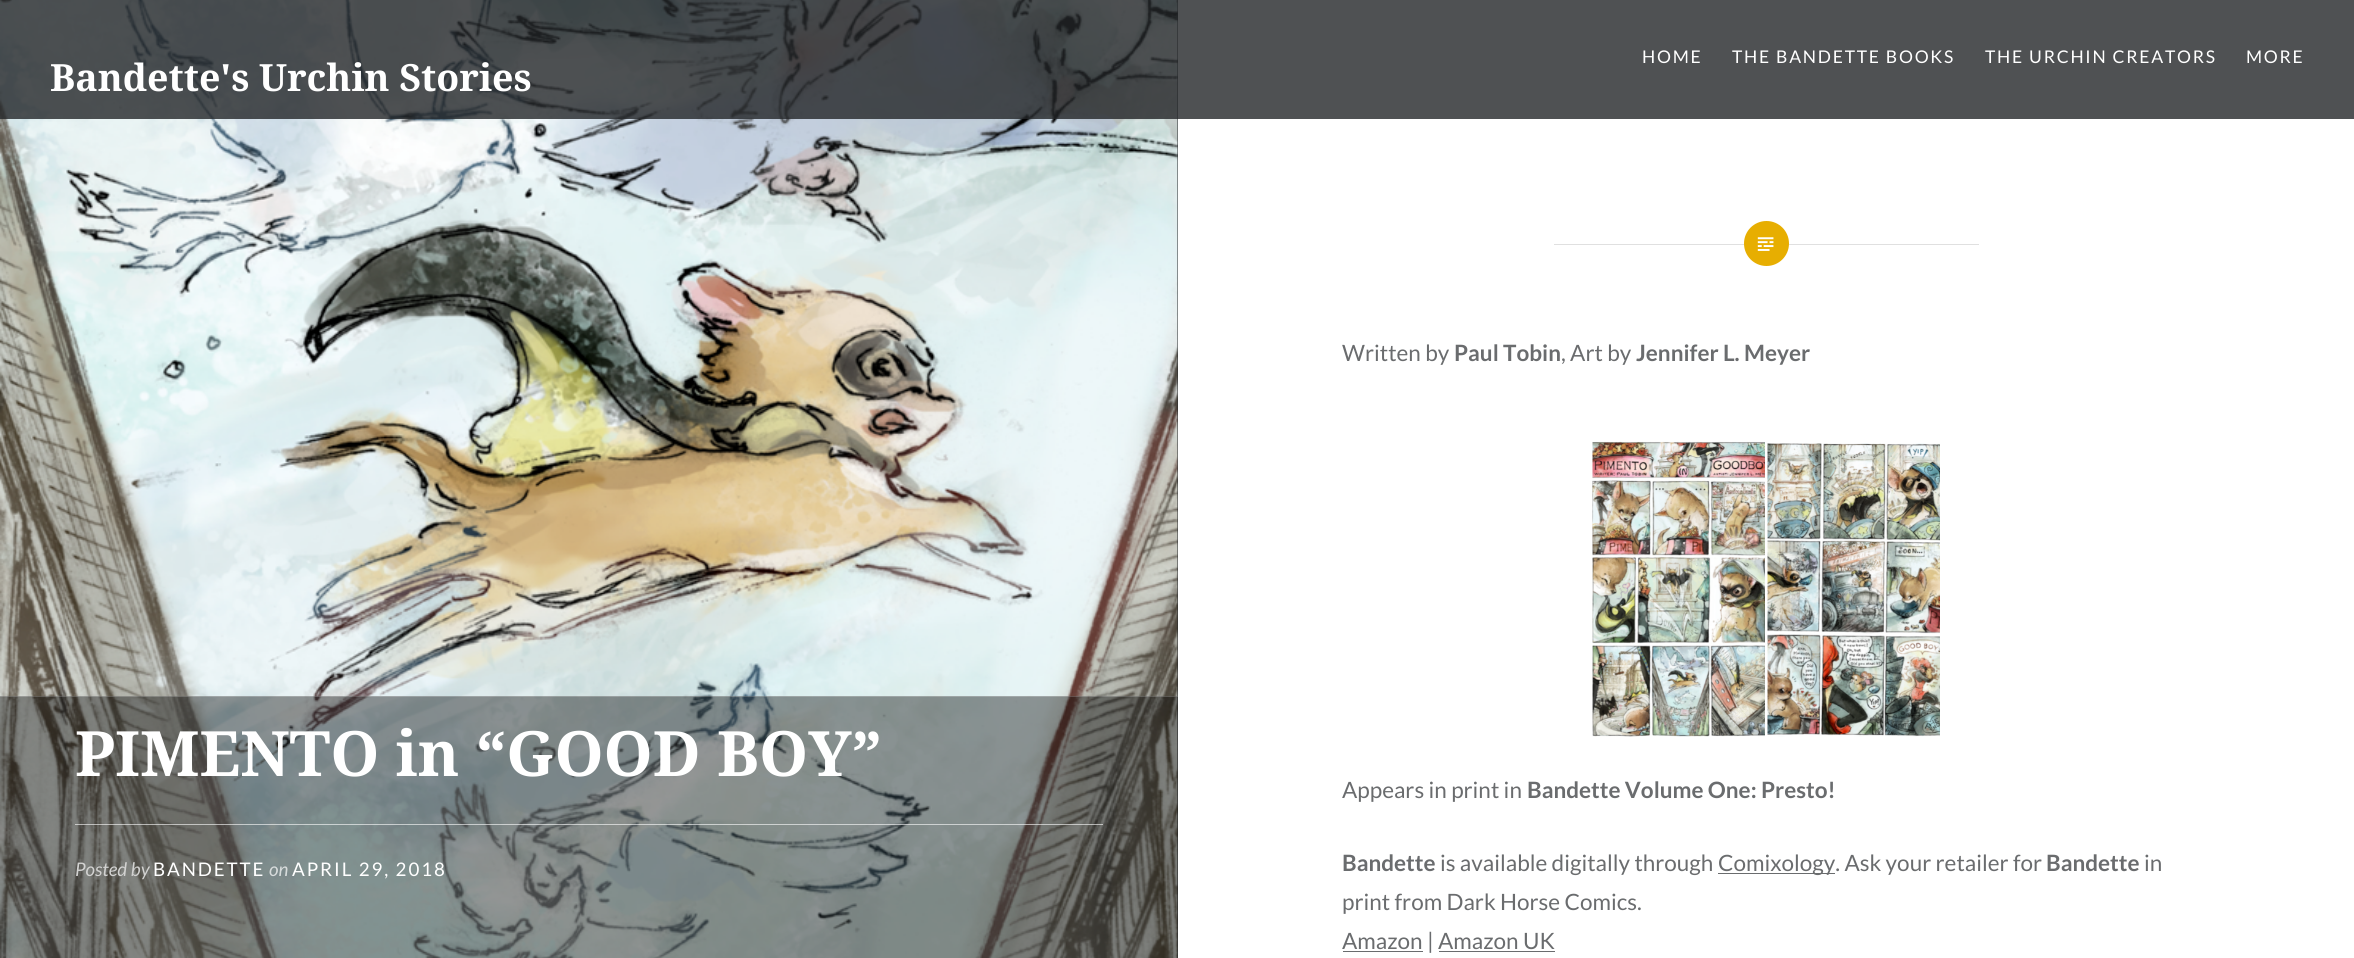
#include <cairo.h>
#include <math.h>
#include <stddef.h>


static void rgb(cairo_t *cr, int r, int g, int b)
{
	cairo_set_source_rgb(cr, r / 255.0, g / 255.0, b / 255.0);
}

static void face(cairo_t *cr, const char *family, double size, int italic, int bold)
{
	cairo_select_font_face(cr, family, italic ? CAIRO_FONT_SLANT_ITALIC : CAIRO_FONT_SLANT_NORMAL,
		bold ? CAIRO_FONT_WEIGHT_BOLD : CAIRO_FONT_WEIGHT_NORMAL);
	cairo_set_font_size(cr, size);
}

static void label(cairo_t *cr, double x, double y, const char *s)
{
	cairo_move_to(cr, x, y);
	cairo_show_text(cr, s);
}

static void tracked(cairo_t *cr, double x, double y, const char *s, double letter, double word)
{
	cairo_move_to(cr, x, y);
	while (*s) {
		char ch[5] = {0};
		int n = 0;
		do ch[n++] = *s++; while ((*s & 0xC0) == 0x80);
		cairo_show_text(cr, ch);
		cairo_rel_move_to(cr, letter + word * (*ch == ' '), 0);
	}
}

static void rect(cairo_t *cr, double x, double y, double w, double h)
{
	cairo_rectangle(cr, x, y, w, h);
	cairo_fill(cr);
}

static void image(cairo_t *cr, const char *path, double x, double y, double w, double h)
{
	cairo_surface_t *image = cairo_image_surface_create_from_png(path);
	cairo_save(cr);
	cairo_set_source_surface(cr, image, x, y);
	cairo_rectangle(cr, x, y, w, h);
	cairo_fill(cr);
	cairo_restore(cr);
	cairo_surface_destroy(image);
}

static void draw(cairo_t *cr) {
	rgb(cr, 36, 38, 41);
	cairo_paint(cr);
	rgb(cr, 255, 255, 255);
	rect(cr, 1178, 0, 1176, 958);
	image(cr, "image0.png", 0, 0, 1178, 958);
	cairo_set_source_rgba(cr, 0.141, 0.149, 0.161, 0.8);
	rect(cr, 0, 0, 2354, 119);
	face(cr, "Lato", 17.5, 0, 0);
	rgb(cr, 255, 255, 255);
	tracked(cr, 1642, 63, "HOME", 1.75, 0);
	tracked(cr, 1732, 63, "THE BANDETTE BOOKS", 1.75, 0);
	tracked(cr, 1985, 63, "THE URCHIN CREATORS", 1.75, 0);
	tracked(cr, 2246, 63, "MORE", 1.75, 0);
	face(cr, "Noto Serif", 37.5, 0, 1);
	label(cr, 50, 91, "Bandette's Urchin Stories");
	rgb(cr, 224, 224, 224);
	rect(cr, 1554, 244, 425, 1);
	rgb(cr, 231, 174, 1);
	cairo_new_path(cr);
	cairo_arc(cr, 1766.5, 243.5, 22.5, 0, 2 * M_PI);
	cairo_fill(cr);
	image(cr, "image1.png", 1757, 237, 17, 14);
	cairo_set_source_rgba(cr, 0, 0, 0, 0.4);
	rect(cr, 0, 696, 1178, 262);
	cairo_set_source_rgba(cr, 1, 1, 1, 0.2);
	rect(cr, 0, 696, 1178, 1);
	face(cr, "Noto Serif", 62.5, 0, 1);
	rgb(cr, 255, 255, 255);
	label(cr, 75, 776, "PIMENTO in “GOOD BOY”");
	cairo_set_source_rgba(cr, 1, 1, 1, 0.6);
	rect(cr, 75, 824, 1028, 1);
	face(cr, "Lato", 18.75, 1, 0);
	rgb(cr, 210, 210, 209);
	label(cr, 75, 876, "Posted by");
	face(cr, "Lato", 18.75, 0, 0);
	rgb(cr, 255, 255, 255);
	tracked(cr, 153, 876, "BANDETTE", 1.9, 0);
	face(cr, "Lato", 18.75, 1, 0);
	rgb(cr, 216, 220, 220);
	label(cr, 269, 876, "on");
	face(cr, "Lato", 18.75, 0, 0);
	rgb(cr, 255, 255, 255);
	tracked(cr, 292, 876, "APRIL 29, 2018", 1.9, 0);
	face(cr, "Lato", 22.5, 0, 0);
	rgb(cr, 106, 108, 110);
	label(cr, 1342, 361, "Written by");
	face(cr, "Lato", 22.5, 0, 1);
	label(cr, 1454, 361, "Paul Tobin");
	face(cr, "Lato", 22.5, 0, 0);
	label(cr, 1561, 361, ", Art by");
	face(cr, "Lato", 22.5, 0, 1);
	label(cr, 1636, 361, "Jennifer L. Meyer");
	image(cr, "image2.png", 1592, 441, 173, 296);
	image(cr, "image3.png", 1767, 443, 173, 294);
	face(cr, "Lato", 22.5, 0, 0);
	label(cr, 1342, 798, "Appears in print in");
	face(cr, "Lato", 22.5, 0, 1);
	label(cr, 1527, 798, "Bandette Volume One: Presto!");
	label(cr, 1342, 871, "Bandette");
	face(cr, "Lato", 22.5, 0, 0);
	label(cr, 1440, 871, "is available digitally through");
	rect(cr, 1718, 873, 117, 1);
	label(cr, 1718, 871, "Comixology. Ask your retailer for");
	face(cr, "Lato", 22.5, 0, 1);
	label(cr, 2046, 871, "Bandette");
	face(cr, "Lato", 22.5, 0, 0);
	label(cr, 2144, 871, "in");
	label(cr, 1342, 910, "print from Dark Horse Comics.");
	rect(cr, 1343, 951, 80, 1);
	label(cr, 1342, 949, "Amazon | Amazon UK");
	rect(cr, 1439, 951, 116, 1);
}

int main(void) {
	cairo_surface_t *surface = cairo_image_surface_create(CAIRO_FORMAT_RGB24, 2354, 958);
	cairo_t *cr = cairo_create(surface);
	cairo_font_options_t *options = cairo_font_options_create();
	cairo_font_options_set_hint_metrics(options, CAIRO_HINT_METRICS_OFF);
	cairo_font_options_set_hint_style(options, CAIRO_HINT_STYLE_NONE);
	cairo_set_font_options(cr, options);
	cairo_set_miter_limit(cr, 4);
	draw(cr);
	cairo_surface_write_to_png(surface, "render.png");
	cairo_font_options_destroy(options);
	cairo_destroy(cr);
	cairo_surface_destroy(surface);
	return 0;
}
